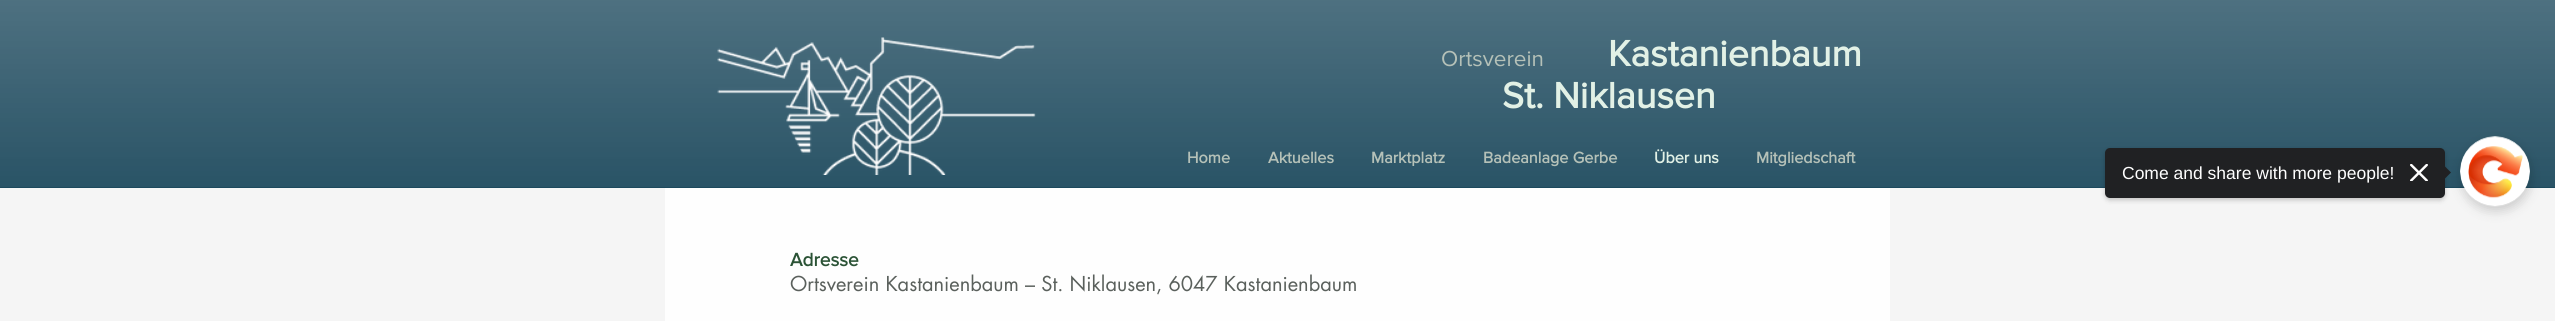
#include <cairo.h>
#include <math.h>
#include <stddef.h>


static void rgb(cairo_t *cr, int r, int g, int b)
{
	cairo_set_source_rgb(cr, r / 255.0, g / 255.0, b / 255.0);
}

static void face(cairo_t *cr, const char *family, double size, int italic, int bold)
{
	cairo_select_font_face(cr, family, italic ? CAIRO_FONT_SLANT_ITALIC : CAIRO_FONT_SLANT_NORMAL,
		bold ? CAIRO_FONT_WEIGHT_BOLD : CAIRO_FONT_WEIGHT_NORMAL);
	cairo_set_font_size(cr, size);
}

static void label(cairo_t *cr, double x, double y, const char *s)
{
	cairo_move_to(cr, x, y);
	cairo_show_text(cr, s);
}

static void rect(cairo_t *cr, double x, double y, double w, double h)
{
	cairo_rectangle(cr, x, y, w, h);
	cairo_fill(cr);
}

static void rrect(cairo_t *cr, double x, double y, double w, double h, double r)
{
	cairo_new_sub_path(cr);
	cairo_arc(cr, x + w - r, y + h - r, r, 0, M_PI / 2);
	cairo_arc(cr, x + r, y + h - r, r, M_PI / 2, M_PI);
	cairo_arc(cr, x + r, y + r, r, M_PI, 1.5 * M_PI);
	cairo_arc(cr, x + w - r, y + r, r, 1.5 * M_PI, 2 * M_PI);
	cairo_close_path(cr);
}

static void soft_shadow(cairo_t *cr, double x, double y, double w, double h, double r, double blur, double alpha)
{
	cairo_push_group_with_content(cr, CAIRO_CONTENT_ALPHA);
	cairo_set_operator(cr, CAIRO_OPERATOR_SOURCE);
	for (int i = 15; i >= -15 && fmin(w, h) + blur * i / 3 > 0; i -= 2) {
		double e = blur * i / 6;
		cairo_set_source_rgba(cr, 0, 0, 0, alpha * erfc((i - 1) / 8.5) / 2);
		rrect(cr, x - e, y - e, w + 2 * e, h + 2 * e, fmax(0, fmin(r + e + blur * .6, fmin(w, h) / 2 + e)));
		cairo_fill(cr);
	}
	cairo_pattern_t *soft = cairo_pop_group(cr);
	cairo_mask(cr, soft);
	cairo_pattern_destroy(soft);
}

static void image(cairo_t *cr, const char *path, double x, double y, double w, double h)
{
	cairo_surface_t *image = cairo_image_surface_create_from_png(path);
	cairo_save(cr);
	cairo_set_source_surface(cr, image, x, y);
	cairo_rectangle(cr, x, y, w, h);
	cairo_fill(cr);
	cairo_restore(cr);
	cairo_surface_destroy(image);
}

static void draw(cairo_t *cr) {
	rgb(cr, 245, 245, 245);
	cairo_paint(cr);
	rgb(cr, 16, 63, 84);
	rect(cr, 0, 0, 2555, 188);
	image(cr, "image0.png", 0, 0, 2555, 188);
	image(cr, "image1.png", 717, 37, 319, 138);
	face(cr, "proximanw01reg", 22.5, 0, 0);
	rgb(cr, 181, 193, 184);
	label(cr, 1441, 66, "Ortsverein");
	face(cr, "proximanw01reg", 37.5, 0, 1);
	rgb(cr, 226, 241, 230);
	label(cr, 1608, 66, "Kastanienbaum");
	label(cr, 1502, 108, "St. Niklausen");
	face(cr, "proximanw01reg", 16.25, 0, 1);
	rgb(cr, 181, 193, 184);
	label(cr, 1187, 163, "Home");
	label(cr, 1268, 163, "Aktuelles");
	label(cr, 1371, 163, "Marktplatz");
	label(cr, 1483, 163, "Badeanlage Gerbe");
	rgb(cr, 226, 241, 230);
	label(cr, 1654, 163, "Über uns");
	rgb(cr, 181, 193, 184);
	label(cr, 1756, 163, "Mitgliedschaft");
	rgb(cr, 254, 254, 254);
	rect(cr, 665, 188, 1225, 133);
	face(cr, "proximanw01reg", 19, 0, 1);
	rgb(cr, 43, 83, 54);
	label(cr, 790, 266, "Adresse");
	face(cr, "futura", 20, 0, 0);
	rgb(cr, 90, 96, 92);
	label(cr, 790, 291, "Ortsverein Kastanienbaum – St. Niklausen, 6047 Kastanienbaum");
	rgb(cr, 0, 0, 0);
	soft_shadow(cr, 2461, 141, 70, 70, 35, 5.5, 0.17);
	soft_shadow(cr, 2105, 150, 340, 50, 5, 2.5, 0.22);
	rgb(cr, 32, 33, 35);
	rrect(cr, 2105, 148, 340, 50, 5);
	cairo_fill(cr);
	face(cr, "Liberation Sans", 17.5, 0, 0);
	rgb(cr, 255, 255, 255);
	label(cr, 2122, 179, "Come and share with more people!");
	image(cr, "image2.png", 2410, 164, 18, 17);
	rgb(cr, 32, 33, 35);
	cairo_new_path(cr);
	cairo_move_to(cr, 2442.5, 181);
	cairo_line_to(cr, 2442.5, 164);
	cairo_line_to(cr, 2451, 172.5);
	cairo_close_path(cr);
	cairo_fill(cr);
	image(cr, "image3.png", 2460, 136, 70, 71);
}

int main(void) {
	cairo_surface_t *surface = cairo_image_surface_create(CAIRO_FORMAT_RGB24, 2555, 321);
	cairo_t *cr = cairo_create(surface);
	cairo_font_options_t *options = cairo_font_options_create();
	cairo_font_options_set_hint_metrics(options, CAIRO_HINT_METRICS_OFF);
	cairo_font_options_set_hint_style(options, CAIRO_HINT_STYLE_NONE);
	cairo_set_font_options(cr, options);
	cairo_set_miter_limit(cr, 4);
	draw(cr);
	cairo_surface_write_to_png(surface, "render.png");
	cairo_font_options_destroy(options);
	cairo_destroy(cr);
	cairo_surface_destroy(surface);
	return 0;
}
